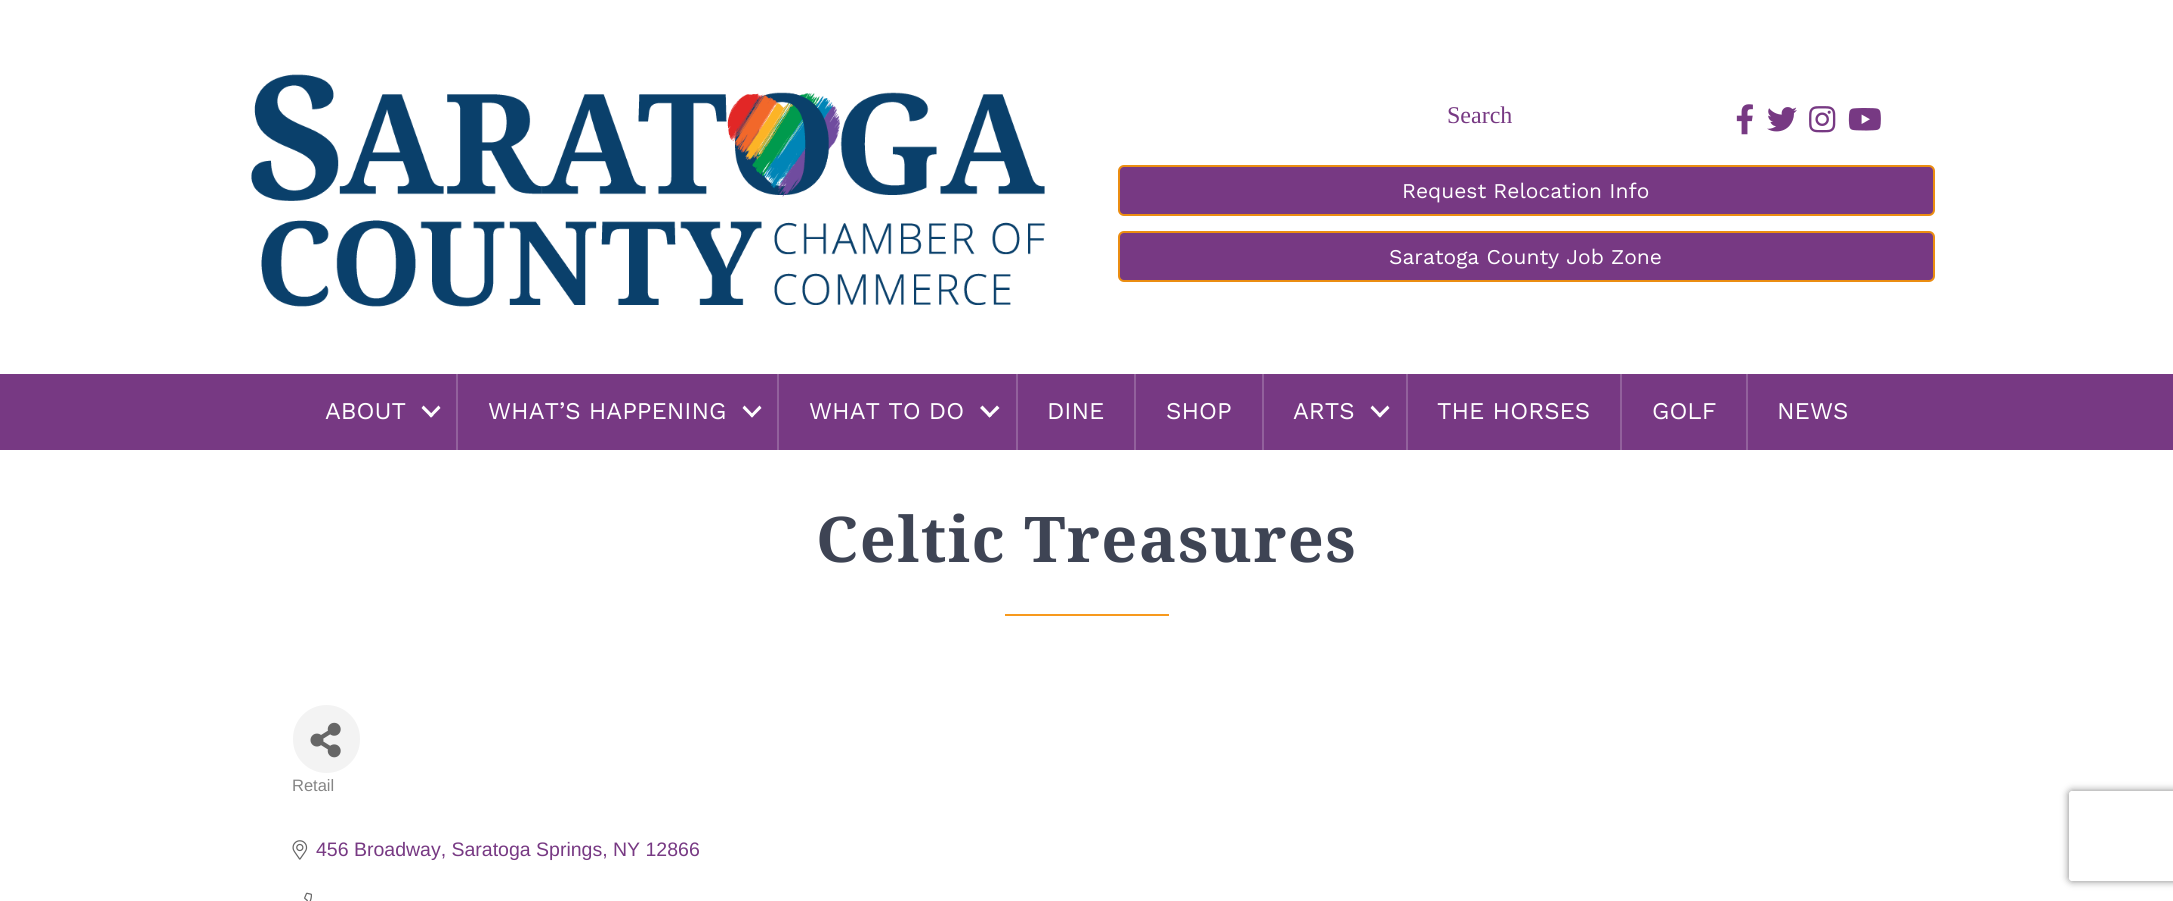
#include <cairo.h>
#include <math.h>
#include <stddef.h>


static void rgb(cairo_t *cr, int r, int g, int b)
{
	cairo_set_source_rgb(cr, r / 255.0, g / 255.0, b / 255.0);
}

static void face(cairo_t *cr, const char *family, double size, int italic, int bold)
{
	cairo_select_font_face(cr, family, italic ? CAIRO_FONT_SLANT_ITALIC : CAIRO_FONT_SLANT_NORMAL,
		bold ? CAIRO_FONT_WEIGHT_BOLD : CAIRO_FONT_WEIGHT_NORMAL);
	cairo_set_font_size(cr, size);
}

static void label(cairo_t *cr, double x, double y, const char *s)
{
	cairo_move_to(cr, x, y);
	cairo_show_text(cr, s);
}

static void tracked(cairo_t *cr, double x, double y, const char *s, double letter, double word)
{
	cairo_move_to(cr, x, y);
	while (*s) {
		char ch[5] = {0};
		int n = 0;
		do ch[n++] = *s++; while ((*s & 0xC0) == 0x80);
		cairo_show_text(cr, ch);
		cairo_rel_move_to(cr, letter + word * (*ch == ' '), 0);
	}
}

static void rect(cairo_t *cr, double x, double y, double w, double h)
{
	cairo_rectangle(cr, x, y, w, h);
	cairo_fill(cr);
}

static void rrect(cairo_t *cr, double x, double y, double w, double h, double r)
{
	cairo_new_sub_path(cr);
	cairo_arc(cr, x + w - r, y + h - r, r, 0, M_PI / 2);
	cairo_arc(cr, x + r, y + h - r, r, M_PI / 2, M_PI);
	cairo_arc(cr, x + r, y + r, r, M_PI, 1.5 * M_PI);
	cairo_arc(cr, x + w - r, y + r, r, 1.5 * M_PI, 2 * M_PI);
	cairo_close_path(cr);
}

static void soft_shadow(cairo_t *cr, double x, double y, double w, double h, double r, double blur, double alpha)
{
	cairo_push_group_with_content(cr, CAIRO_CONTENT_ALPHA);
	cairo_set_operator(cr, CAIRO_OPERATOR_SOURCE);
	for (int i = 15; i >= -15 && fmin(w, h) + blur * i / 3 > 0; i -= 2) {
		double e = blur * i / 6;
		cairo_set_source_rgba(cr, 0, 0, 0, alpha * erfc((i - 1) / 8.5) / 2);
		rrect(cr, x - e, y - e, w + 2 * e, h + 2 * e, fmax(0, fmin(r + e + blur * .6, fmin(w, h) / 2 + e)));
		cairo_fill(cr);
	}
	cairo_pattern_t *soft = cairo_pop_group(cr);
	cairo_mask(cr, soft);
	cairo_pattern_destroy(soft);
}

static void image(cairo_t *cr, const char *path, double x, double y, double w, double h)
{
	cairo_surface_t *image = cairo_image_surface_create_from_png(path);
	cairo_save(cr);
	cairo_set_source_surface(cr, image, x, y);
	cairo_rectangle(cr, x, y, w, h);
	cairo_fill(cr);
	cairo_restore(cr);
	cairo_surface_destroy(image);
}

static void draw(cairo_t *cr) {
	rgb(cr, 255, 255, 255);
	cairo_paint(cr);
	image(cr, "image0.png", 251, 74, 794, 233);
	face(cr, "Liberation Serif", 24, 0, 0);
	rgb(cr, 119, 57, 131);
	label(cr, 1447, 123, "Search");
	image(cr, "image1.png", 1736, 104, 17, 31);
	image(cr, "image2.png", 1767, 107, 30, 25);
	image(cr, "image3.png", 1809, 106, 27, 27);
	image(cr, "image4.png", 1848, 108, 33, 23);
	rrect(cr, 1119, 166, 815, 49, 5);
	cairo_fill_preserve(cr);
	rgb(cr, 235, 141, 17);
	cairo_stroke(cr);
	face(cr, "Work Sans", 21, 0, 0);
	rgb(cr, 255, 255, 255);
	label(cr, 1402, 198, "Request Relocation Info");
	rgb(cr, 119, 57, 131);
	rrect(cr, 1119, 232, 815, 49, 5);
	cairo_fill_preserve(cr);
	rgb(cr, 235, 141, 17);
	cairo_stroke(cr);
	rgb(cr, 255, 255, 255);
	label(cr, 1389, 264, "Saratoga County Job Zone");
	rgb(cr, 119, 57, 131);
	rect(cr, 0, 374, 2173, 76);
	face(cr, "Work Sans", 24, 0, 0);
	rgb(cr, 255, 255, 255);
	label(cr, 325, 419, "ABOUT");
	cairo_new_path(cr);
	cairo_move_to(cr, 438.5, 405.5);
	cairo_line_to(cr, 440.5, 408);
	cairo_line_to(cr, 431, 417.5);
	cairo_line_to(cr, 429, 415.5);
	cairo_close_path(cr);
	cairo_fill(cr);
	cairo_new_path(cr);
	cairo_move_to(cr, 423.5, 405.5);
	cairo_line_to(cr, 433.5, 415.5);
	cairo_line_to(cr, 431, 417.5);
	cairo_line_to(cr, 421.5, 408);
	cairo_close_path(cr);
	cairo_fill(cr);
	rgb(cr, 146, 97, 156);
	rect(cr, 456, 374, 2, 76);
	rgb(cr, 255, 255, 255);
	label(cr, 488, 419, "WHAT’S HAPPENING");
	cairo_new_path(cr);
	cairo_move_to(cr, 759.5, 405.5);
	cairo_line_to(cr, 761.5, 408);
	cairo_line_to(cr, 752, 417.5);
	cairo_line_to(cr, 750, 415.5);
	cairo_close_path(cr);
	cairo_fill(cr);
	cairo_new_path(cr);
	cairo_move_to(cr, 744.5, 405.5);
	cairo_line_to(cr, 754, 415.5);
	cairo_line_to(cr, 752, 417.5);
	cairo_line_to(cr, 742.5, 408);
	cairo_close_path(cr);
	cairo_fill(cr);
	rgb(cr, 146, 97, 156);
	rect(cr, 777, 374, 2, 76);
	rgb(cr, 255, 255, 255);
	label(cr, 809, 419, "WHAT TO DO");
	cairo_new_path(cr);
	cairo_move_to(cr, 997, 405.5);
	cairo_line_to(cr, 999.5, 408);
	cairo_line_to(cr, 989.5, 417.5);
	cairo_line_to(cr, 987.5, 415.5);
	cairo_close_path(cr);
	cairo_fill(cr);
	cairo_new_path(cr);
	cairo_move_to(cr, 982.5, 405.5);
	cairo_line_to(cr, 992, 415.5);
	cairo_line_to(cr, 989.5, 417.5);
	cairo_line_to(cr, 980, 408);
	cairo_close_path(cr);
	cairo_fill(cr);
	rgb(cr, 146, 97, 156);
	rect(cr, 1016, 374, 2, 76);
	rgb(cr, 255, 255, 255);
	label(cr, 1047, 419, "DINE");
	rgb(cr, 146, 97, 156);
	rect(cr, 1134, 374, 2, 76);
	rgb(cr, 255, 255, 255);
	label(cr, 1166, 419, "SHOP");
	rgb(cr, 146, 97, 156);
	rect(cr, 1262, 374, 2, 76);
	rgb(cr, 255, 255, 255);
	label(cr, 1293, 419, "ARTS");
	cairo_new_path(cr);
	cairo_move_to(cr, 1387.5, 405.5);
	cairo_line_to(cr, 1389.5, 408);
	cairo_line_to(cr, 1380, 417.5);
	cairo_line_to(cr, 1377.5, 415.5);
	cairo_close_path(cr);
	cairo_fill(cr);
	cairo_new_path(cr);
	cairo_move_to(cr, 1372.5, 405.5);
	cairo_line_to(cr, 1382, 415.5);
	cairo_line_to(cr, 1380, 417.5);
	cairo_line_to(cr, 1370.5, 408);
	cairo_close_path(cr);
	cairo_fill(cr);
	rgb(cr, 146, 97, 156);
	rect(cr, 1406, 374, 2, 76);
	rgb(cr, 255, 255, 255);
	label(cr, 1437, 419, "THE HORSES");
	rgb(cr, 146, 97, 156);
	rect(cr, 1620, 374, 2, 76);
	rgb(cr, 255, 255, 255);
	label(cr, 1652, 419, "GOLF");
	rgb(cr, 146, 97, 156);
	rect(cr, 1746, 374, 2, 76);
	rgb(cr, 255, 255, 255);
	label(cr, 1777, 419, "NEWS");
	face(cr, "Noto Serif", 63, 0, 1);
	rgb(cr, 62, 68, 84);
	tracked(cr, 816, 562, "Celtic Treasures", 1.5, 0);
	rgb(cr, 247, 153, 29);
	rect(cr, 1005, 614, 164, 2);
	rgb(cr, 243, 243, 243);
	rrect(cr, 293, 705, 67, 68, 33.5);
	cairo_fill(cr);
	image(cr, "image5.png", 310, 722, 31, 36);
	face(cr, "Liberation Sans", 16.5, 0, 0);
	rgb(cr, 133, 133, 133);
	label(cr, 292, 791, "Retail");
	image(cr, "image6.png", 292, 840, 16, 20);
	face(cr, "Liberation Sans", 19.5, 0, 0);
	rgb(cr, 119, 57, 131);
	label(cr, 316, 856, "456 Broadway, Saratoga Springs, NY 12866");
	image(cr, "image7.png", 304, 892, 8, 9);
	cairo_save(cr);
	cairo_set_fill_rule(cr, CAIRO_FILL_RULE_EVEN_ODD);
	cairo_new_path(cr);
	cairo_move_to(cr, 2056, 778);
	cairo_line_to(cr, 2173, 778);
	cairo_line_to(cr, 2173, 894);
	cairo_line_to(cr, 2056, 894);
	cairo_close_path(cr);
	cairo_move_to(cr, 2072, 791);
	cairo_line_to(cr, 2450, 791);
	cairo_curve_to(cr, 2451.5, 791, 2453, 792.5, 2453, 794);
	cairo_line_to(cr, 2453, 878);
	cairo_curve_to(cr, 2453, 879.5, 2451.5, 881, 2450, 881);
	cairo_line_to(cr, 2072, 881);
	cairo_curve_to(cr, 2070.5, 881, 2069, 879.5, 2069, 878);
	cairo_line_to(cr, 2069, 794);
	cairo_curve_to(cr, 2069, 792.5, 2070.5, 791, 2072, 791);
	cairo_close_path(cr);
	cairo_clip(cr);
	rgb(cr, 128, 128, 128);
	soft_shadow(cr, 2069, 791, 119, 90, 3, 4, 1);
	cairo_restore(cr);
}

int main(void) {
	cairo_surface_t *surface = cairo_image_surface_create(CAIRO_FORMAT_RGB24, 2173, 901);
	cairo_t *cr = cairo_create(surface);
	cairo_font_options_t *options = cairo_font_options_create();
	cairo_font_options_set_hint_metrics(options, CAIRO_HINT_METRICS_OFF);
	cairo_font_options_set_hint_style(options, CAIRO_HINT_STYLE_NONE);
	cairo_set_font_options(cr, options);
	cairo_set_miter_limit(cr, 4);
	draw(cr);
	cairo_surface_write_to_png(surface, "render.png");
	cairo_font_options_destroy(options);
	cairo_destroy(cr);
	cairo_surface_destroy(surface);
	return 0;
}
